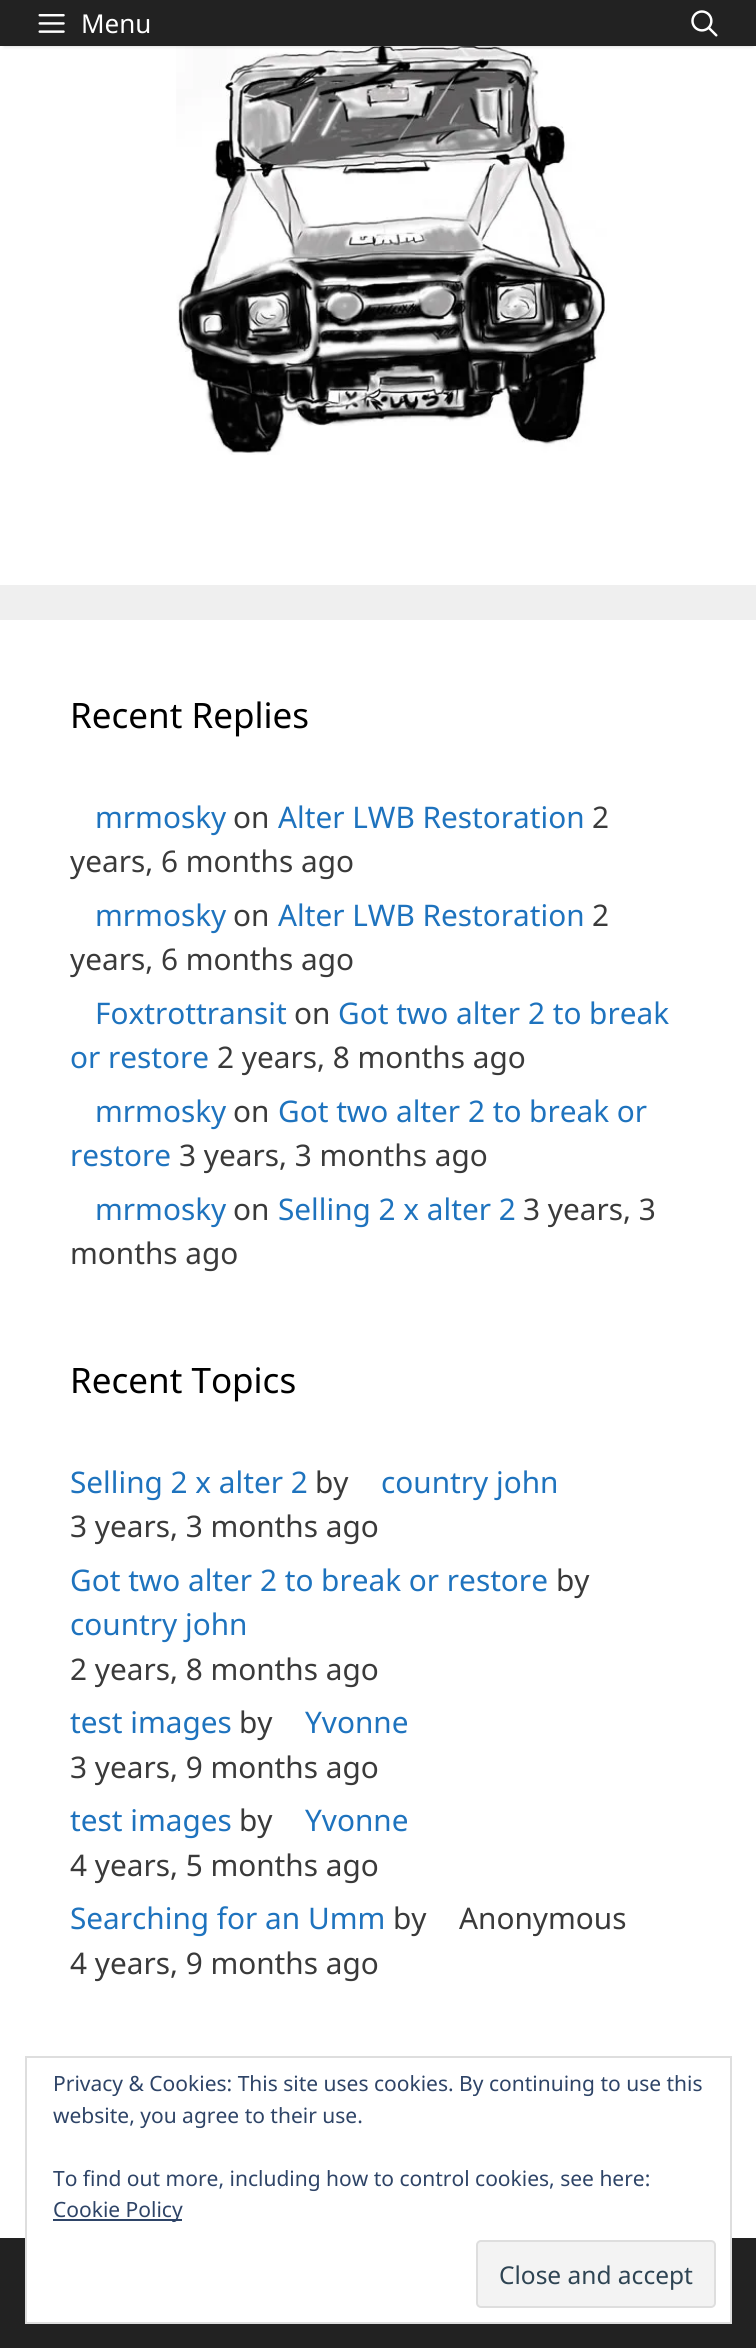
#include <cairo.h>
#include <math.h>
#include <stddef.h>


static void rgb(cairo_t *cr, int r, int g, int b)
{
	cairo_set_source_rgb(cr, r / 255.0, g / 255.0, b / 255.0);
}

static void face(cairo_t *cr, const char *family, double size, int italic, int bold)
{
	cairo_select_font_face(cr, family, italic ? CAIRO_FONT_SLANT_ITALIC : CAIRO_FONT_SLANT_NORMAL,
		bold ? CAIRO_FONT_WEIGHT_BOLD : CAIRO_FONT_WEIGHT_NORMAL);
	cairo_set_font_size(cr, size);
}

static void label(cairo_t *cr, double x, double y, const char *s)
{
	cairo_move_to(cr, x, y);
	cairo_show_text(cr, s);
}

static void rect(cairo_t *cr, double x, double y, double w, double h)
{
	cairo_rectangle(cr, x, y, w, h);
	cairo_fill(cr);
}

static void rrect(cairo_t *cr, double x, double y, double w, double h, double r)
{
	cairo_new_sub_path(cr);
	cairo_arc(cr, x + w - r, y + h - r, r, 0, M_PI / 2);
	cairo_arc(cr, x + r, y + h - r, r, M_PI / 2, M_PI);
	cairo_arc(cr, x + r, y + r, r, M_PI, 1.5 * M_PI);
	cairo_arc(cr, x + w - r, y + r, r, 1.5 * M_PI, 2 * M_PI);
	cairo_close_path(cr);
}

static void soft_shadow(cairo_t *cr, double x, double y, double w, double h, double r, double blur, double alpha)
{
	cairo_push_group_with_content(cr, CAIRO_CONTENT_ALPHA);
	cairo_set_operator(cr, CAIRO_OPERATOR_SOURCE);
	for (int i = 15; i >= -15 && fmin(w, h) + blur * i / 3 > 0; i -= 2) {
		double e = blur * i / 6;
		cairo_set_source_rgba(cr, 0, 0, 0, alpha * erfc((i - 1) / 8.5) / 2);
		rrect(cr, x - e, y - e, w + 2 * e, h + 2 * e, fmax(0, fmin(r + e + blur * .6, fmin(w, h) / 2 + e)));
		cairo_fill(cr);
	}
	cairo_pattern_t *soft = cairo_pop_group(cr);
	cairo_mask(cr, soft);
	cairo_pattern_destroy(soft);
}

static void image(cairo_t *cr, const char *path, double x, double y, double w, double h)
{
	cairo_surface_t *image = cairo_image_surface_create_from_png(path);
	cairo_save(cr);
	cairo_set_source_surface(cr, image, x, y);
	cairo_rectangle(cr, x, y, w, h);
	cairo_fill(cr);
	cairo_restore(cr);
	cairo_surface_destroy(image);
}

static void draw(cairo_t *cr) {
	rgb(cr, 239, 239, 239);
	cairo_paint(cr);
	rgb(cr, 255, 255, 255);
	rect(cr, 0, 46, 756, 539);
	image(cr, "image2.png", 176, 46, 431, 409);
	rgb(cr, 0, 0, 0);
	soft_shadow(cr, 4, 7, 749, 39, 0, 2, 0.2);
	rgb(cr, 34, 34, 34);
	rect(cr, 0, 0, 756, 46);
	image(cr, "image0.png", 38, 14, 27, 19);
	face(cr, "Noto Sans", 26, 0, 0);
	rgb(cr, 255, 255, 255);
	label(cr, 81, 33, "Menu");
	image(cr, "image1.png", 691, 10, 27, 27);
	rect(cr, 0, 620, 756, 1618);
	face(cr, "Noto Sans", 35, 0, 0);
	rgb(cr, 0, 0, 0);
	label(cr, 70, 728, "Recent Replies");
	face(cr, "Noto Sans", 29.75, 0, 0);
	rgb(cr, 30, 115, 190);
	label(cr, 95, 828, "mrmosky");
	rgb(cr, 58, 58, 58);
	label(cr, 233, 828, "on");
	rgb(cr, 30, 115, 190);
	label(cr, 278, 828, "Alter LWB Restoration");
	rgb(cr, 58, 58, 58);
	label(cr, 592, 828, "2");
	label(cr, 70, 872, "years, 6 months ago");
	rgb(cr, 30, 115, 190);
	label(cr, 95, 926, "mrmosky");
	rgb(cr, 58, 58, 58);
	label(cr, 233, 926, "on");
	rgb(cr, 30, 115, 190);
	label(cr, 278, 926, "Alter LWB Restoration");
	rgb(cr, 58, 58, 58);
	label(cr, 592, 926, "2");
	label(cr, 70, 970, "years, 6 months ago");
	rgb(cr, 30, 115, 190);
	label(cr, 95, 1024, "Foxtrottransit");
	rgb(cr, 58, 58, 58);
	label(cr, 294, 1024, "on");
	rgb(cr, 30, 115, 190);
	label(cr, 338, 1024, "Got two alter 2 to break");
	label(cr, 70, 1068, "or restore");
	rgb(cr, 58, 58, 58);
	label(cr, 217, 1068, "2 years, 8 months ago");
	rgb(cr, 30, 115, 190);
	label(cr, 95, 1122, "mrmosky");
	rgb(cr, 58, 58, 58);
	label(cr, 233, 1122, "on");
	rgb(cr, 30, 115, 190);
	label(cr, 278, 1122, "Got two alter 2 to break or");
	label(cr, 70, 1166, "restore");
	rgb(cr, 58, 58, 58);
	label(cr, 179, 1166, "3 years, 3 months ago");
	rgb(cr, 30, 115, 190);
	label(cr, 95, 1220, "mrmosky");
	rgb(cr, 58, 58, 58);
	label(cr, 233, 1220, "on");
	rgb(cr, 30, 115, 190);
	label(cr, 278, 1220, "Selling 2 x alter 2");
	rgb(cr, 58, 58, 58);
	label(cr, 523, 1220, "3 years, 3");
	label(cr, 70, 1264, "months ago");
	face(cr, "Noto Sans", 35, 0, 0);
	rgb(cr, 0, 0, 0);
	label(cr, 70, 1393, "Recent Topics");
	face(cr, "Noto Sans", 29.75, 0, 0);
	rgb(cr, 30, 115, 190);
	label(cr, 70, 1493, "Selling 2 x alter 2");
	rgb(cr, 58, 58, 58);
	label(cr, 315, 1493, "by");
	rgb(cr, 30, 115, 190);
	label(cr, 381, 1493, "country john");
	rgb(cr, 58, 58, 58);
	label(cr, 70, 1537, "3 years, 3 months ago");
	rgb(cr, 30, 115, 190);
	label(cr, 70, 1591, "Got two alter 2 to break or restore");
	rgb(cr, 58, 58, 58);
	label(cr, 556, 1591, "by");
	rgb(cr, 30, 115, 190);
	label(cr, 70, 1635, "country john");
	rgb(cr, 58, 58, 58);
	label(cr, 70, 1680, "2 years, 8 months ago");
	rgb(cr, 30, 115, 190);
	label(cr, 70, 1733, "test images");
	rgb(cr, 58, 58, 58);
	label(cr, 239, 1733, "by");
	rgb(cr, 30, 115, 190);
	label(cr, 305, 1733, "Yvonne");
	rgb(cr, 58, 58, 58);
	label(cr, 70, 1778, "3 years, 9 months ago");
	rgb(cr, 30, 115, 190);
	label(cr, 70, 1831, "test images");
	rgb(cr, 58, 58, 58);
	label(cr, 239, 1831, "by");
	rgb(cr, 30, 115, 190);
	label(cr, 305, 1831, "Yvonne");
	rgb(cr, 58, 58, 58);
	label(cr, 70, 1876, "4 years, 5 months ago");
	rgb(cr, 30, 115, 190);
	label(cr, 70, 1929, "Searching for an Umm");
	rgb(cr, 58, 58, 58);
	label(cr, 393, 1929, "by");
	label(cr, 459, 1929, "Anonymous");
	label(cr, 70, 1974, "4 years, 9 months ago");
	rgb(cr, 34, 34, 34);
	rect(cr, 0, 2238, 756, 110);
	rgb(cr, 255, 255, 255);
	rect(cr, 27, 2238, 703, 84);
	cairo_rectangle(cr, 26, 2057, 705, 266);
	rgb(cr, 222, 222, 222);
	cairo_stroke(cr);
	face(cr, "Noto Sans", 21, 0, 0);
	rgb(cr, 46, 68, 103);
	label(cr, 53, 2091, "Privacy & Cookies: This site uses cookies. By continuing to use this");
	label(cr, 53, 2123, "website, you agree to their use.");
	label(cr, 53, 2186, "To find out more, including how to control cookies, see here:");
	rect(cr, 53, 2219, 129, 2);
	label(cr, 53, 2217, "Cookie Policy");
	rgb(cr, 243, 243, 243);
	rrect(cr, 477, 2241, 238, 66, 4);
	cairo_fill_preserve(cr);
	rgb(cr, 222, 222, 222);
	cairo_stroke(cr);
	face(cr, "Noto Sans", 24.5, 0, 0);
	rgb(cr, 46, 68, 83);
	label(cr, 499, 2284, "Close and accept");
}

int main(void) {
	cairo_surface_t *surface = cairo_image_surface_create(CAIRO_FORMAT_RGB24, 756, 2348);
	cairo_t *cr = cairo_create(surface);
	cairo_font_options_t *options = cairo_font_options_create();
	cairo_font_options_set_hint_metrics(options, CAIRO_HINT_METRICS_OFF);
	cairo_font_options_set_hint_style(options, CAIRO_HINT_STYLE_NONE);
	cairo_set_font_options(cr, options);
	cairo_set_miter_limit(cr, 4);
	draw(cr);
	cairo_surface_write_to_png(surface, "render.png");
	cairo_font_options_destroy(options);
	cairo_destroy(cr);
	cairo_surface_destroy(surface);
	return 0;
}
